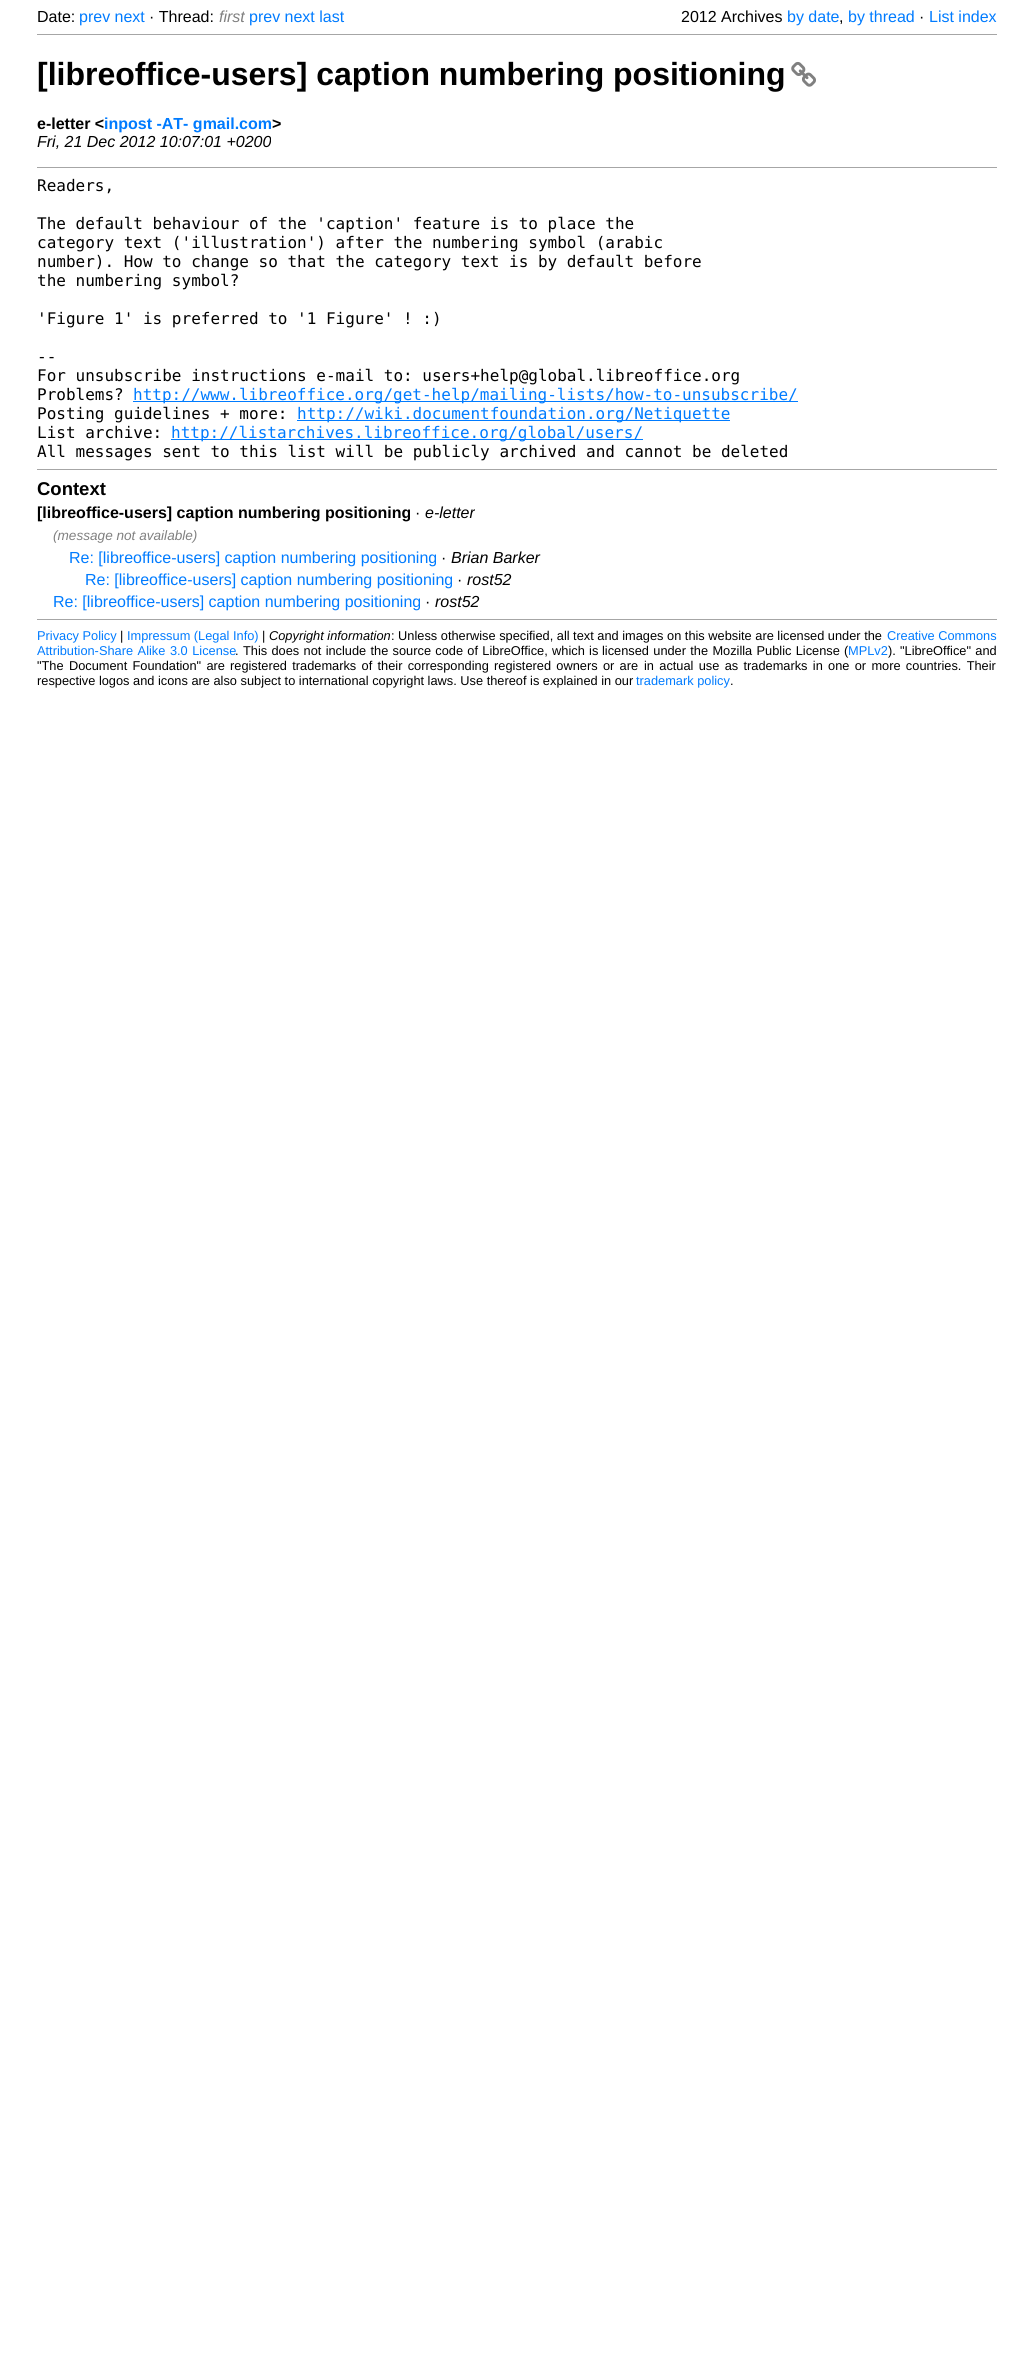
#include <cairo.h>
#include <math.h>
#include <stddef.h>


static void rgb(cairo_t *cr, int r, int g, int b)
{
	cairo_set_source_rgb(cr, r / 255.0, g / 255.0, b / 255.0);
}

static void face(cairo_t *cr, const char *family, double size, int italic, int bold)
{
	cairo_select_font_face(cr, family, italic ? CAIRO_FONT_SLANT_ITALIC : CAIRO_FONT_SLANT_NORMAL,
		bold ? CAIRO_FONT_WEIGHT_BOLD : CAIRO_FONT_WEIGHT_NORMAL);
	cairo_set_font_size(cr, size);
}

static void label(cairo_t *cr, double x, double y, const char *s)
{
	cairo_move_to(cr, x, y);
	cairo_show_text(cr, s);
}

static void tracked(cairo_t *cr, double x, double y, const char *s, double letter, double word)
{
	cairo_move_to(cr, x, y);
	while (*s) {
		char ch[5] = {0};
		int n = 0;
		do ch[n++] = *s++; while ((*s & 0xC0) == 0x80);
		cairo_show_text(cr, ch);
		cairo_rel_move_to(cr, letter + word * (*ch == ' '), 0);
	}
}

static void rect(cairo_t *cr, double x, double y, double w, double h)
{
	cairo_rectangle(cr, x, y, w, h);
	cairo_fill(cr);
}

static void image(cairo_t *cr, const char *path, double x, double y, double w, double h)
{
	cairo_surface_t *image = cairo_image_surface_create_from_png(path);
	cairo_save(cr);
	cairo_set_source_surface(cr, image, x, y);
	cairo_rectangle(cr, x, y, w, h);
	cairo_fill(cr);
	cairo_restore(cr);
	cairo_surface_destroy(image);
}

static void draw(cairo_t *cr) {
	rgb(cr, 255, 255, 255);
	cairo_paint(cr);
	face(cr, "Liberation Sans", 16, 0, 0);
	rgb(cr, 0, 0, 0);
	label(cr, 37, 22, "Date:");
	rgb(cr, 0, 123, 255);
	label(cr, 79, 22, "prev next");
	rgb(cr, 0, 0, 0);
	label(cr, 149, 22, "· Thread:");
	face(cr, "Liberation Sans", 16, 1, 0);
	rgb(cr, 128, 128, 128);
	label(cr, 219, 22, "first");
	face(cr, "Liberation Sans", 16, 0, 0);
	rgb(cr, 0, 123, 255);
	label(cr, 249, 22, "prev next last");
	rgb(cr, 0, 0, 0);
	label(cr, 681, 22, "2012 Archives");
	rgb(cr, 0, 123, 255);
	label(cr, 787, 22, "by date");
	label(cr, 848, 22, "by thread");
	rgb(cr, 0, 0, 0);
	label(cr, 919, 22, "·");
	rgb(cr, 0, 123, 255);
	label(cr, 929, 22, "List index");
	rgb(cr, 0, 0, 0);
	label(cr, 839, 22, ",");
	rgb(cr, 166, 166, 166);
	rect(cr, 37, 34, 960, 1);
	face(cr, "Liberation Sans", 32, 0, 1);
	rgb(cr, 0, 0, 0);
	label(cr, 37, 85, "[libreoffice-users] caption numbering positioning");
	image(cr, "image0.png", 791, 61, 25, 26);
	face(cr, "Liberation Sans", 16, 0, 1);
	label(cr, 37, 129, "e-letter <");
	rgb(cr, 0, 123, 255);
	label(cr, 104, 129, "inpost -AT- gmail.com");
	rgb(cr, 0, 0, 0);
	label(cr, 272, 129, ">");
	face(cr, "Liberation Sans", 16, 1, 0);
	label(cr, 37, 147, "Fri, 21 Dec 2012 10:07:01 +0200");
	rgb(cr, 166, 166, 166);
	rect(cr, 37, 167, 960, 1);
	face(cr, "DejaVu Sans Mono", 16, 0, 0);
	rgb(cr, 0, 0, 0);
	label(cr, 37, 191, "Readers,");
	label(cr, 37, 229, "The default behaviour of the 'caption' feature is to place the");
	label(cr, 37, 248, "category text ('illustration') after the numbering symbol (arabic");
	label(cr, 37, 267, "number). How to change so that the category text is by default before");
	label(cr, 37, 286, "the numbering symbol?");
	label(cr, 37, 324, "'Figure 1' is preferred to '1 Figure' ! :)");
	label(cr, 37, 362, "--");
	label(cr, 37, 381, "For unsubscribe instructions e-mail to: users+help@global.libreoffice.org");
	label(cr, 37, 400, "Problems?");
	rgb(cr, 0, 123, 255);
	rect(cr, 133, 401, 665, 1);
	label(cr, 133, 400, "http://www.libreoffice.org/get-help/mailing-lists/how-to-unsubscribe/");
	rgb(cr, 0, 0, 0);
	label(cr, 37, 419, "Posting guidelines + more:");
	rgb(cr, 0, 123, 255);
	rect(cr, 297, 420, 433, 1);
	label(cr, 297, 419, "http://wiki.documentfoundation.org/Netiquette");
	rgb(cr, 0, 0, 0);
	label(cr, 37, 438, "List archive:");
	rgb(cr, 0, 123, 255);
	rect(cr, 171, 439, 472, 1);
	label(cr, 171, 438, "http://listarchives.libreoffice.org/global/users/");
	rgb(cr, 0, 0, 0);
	label(cr, 37, 457, "All messages sent to this list will be publicly archived and cannot be deleted");
	rgb(cr, 166, 166, 166);
	rect(cr, 37, 469, 960, 1);
	face(cr, "Liberation Sans", 18.5, 0, 1);
	rgb(cr, 0, 0, 0);
	label(cr, 37, 495, "Context");
	face(cr, "Liberation Sans", 16, 0, 1);
	label(cr, 37, 518, "[libreoffice-users] caption numbering positioning");
	face(cr, "Liberation Sans", 16, 0, 0);
	label(cr, 415, 518, "·");
	face(cr, "Liberation Sans", 16, 1, 0);
	label(cr, 425, 518, "e-letter");
	face(cr, "Liberation Sans", 13.6, 1, 0);
	rgb(cr, 128, 128, 128);
	label(cr, 53, 540, "(message not available)");
	face(cr, "Liberation Sans", 16, 0, 0);
	rgb(cr, 0, 123, 255);
	label(cr, 69, 563, "Re: [libreoffice-users] caption numbering positioning");
	rgb(cr, 0, 0, 0);
	label(cr, 441, 563, "·");
	face(cr, "Liberation Sans", 16, 1, 0);
	label(cr, 451, 563, "Brian Barker");
	face(cr, "Liberation Sans", 16, 0, 0);
	rgb(cr, 0, 123, 255);
	label(cr, 85, 585, "Re: [libreoffice-users] caption numbering positioning");
	rgb(cr, 0, 0, 0);
	label(cr, 457, 585, "·");
	face(cr, "Liberation Sans", 16, 1, 0);
	label(cr, 467, 585, "rost52");
	face(cr, "Liberation Sans", 16, 0, 0);
	rgb(cr, 0, 123, 255);
	label(cr, 53, 607, "Re: [libreoffice-users] caption numbering positioning");
	rgb(cr, 0, 0, 0);
	label(cr, 425, 607, "·");
	face(cr, "Liberation Sans", 16, 1, 0);
	label(cr, 435, 607, "rost52");
	rgb(cr, 166, 166, 166);
	rect(cr, 37, 619, 960, 1);
	face(cr, "Liberation Sans", 12.8, 0, 0);
	rgb(cr, 0, 123, 255);
	label(cr, 37, 640, "Privacy Policy");
	rgb(cr, 0, 0, 0);
	label(cr, 120, 640, "|");
	rgb(cr, 0, 123, 255);
	label(cr, 127, 640, "Impressum (Legal Info)");
	rgb(cr, 0, 0, 0);
	label(cr, 262, 640, "|");
	face(cr, "Liberation Sans", 12.8, 1, 0);
	label(cr, 269, 640, "Copyright information");
	face(cr, "Liberation Sans", 12.8, 0, 0);
	label(cr, 391, 640, ": Unless otherwise specified, all text and images on this website are licensed under the");
	rgb(cr, 0, 123, 255);
	label(cr, 887, 640, "Creative Commons");
	tracked(cr, 37, 655, "Attribution-Share Alike 3.0 License", 0, 1);
	rgb(cr, 0, 0, 0);
	label(cr, 235, 655, ".");
	tracked(cr, 243, 655, "This does not include the source code of LibreOffice, which is", 0, 0.75);
	tracked(cr, 602, 655, "licensed under the Mozilla Public License (", 0, 0.75);
	rgb(cr, 0, 123, 255);
	label(cr, 848, 655, "MPLv2");
	rgb(cr, 0, 0, 0);
	label(cr, 888, 655, ").");
	tracked(cr, 900, 655, "\"LibreOffice\" and", 0, 0.75);
	tracked(cr, 37, 670, "\"The Document Foundation\" are", 0, 1.75);
	tracked(cr, 230, 670, "registered trademarks of their corresponding registered owners or are", 0, 1.75);
	tracked(cr, 644, 670, "in actual use as trademarks in one or more countries. Their", 0, 1.75);
	label(cr, 37, 685, "respective logos and icons are also subject to international copyright laws. Use thereof is explained in our");
	rgb(cr, 0, 123, 255);
	label(cr, 636, 685, "trademark policy");
	rgb(cr, 0, 0, 0);
	label(cr, 730, 685, ".");
}

int main(void) {
	cairo_surface_t *surface = cairo_image_surface_create(CAIRO_FORMAT_RGB24, 1033, 2360);
	cairo_t *cr = cairo_create(surface);
	cairo_font_options_t *options = cairo_font_options_create();
	cairo_font_options_set_hint_metrics(options, CAIRO_HINT_METRICS_OFF);
	cairo_font_options_set_hint_style(options, CAIRO_HINT_STYLE_NONE);
	cairo_set_font_options(cr, options);
	cairo_set_miter_limit(cr, 4);
	draw(cr);
	cairo_surface_write_to_png(surface, "render.png");
	cairo_font_options_destroy(options);
	cairo_destroy(cr);
	cairo_surface_destroy(surface);
	return 0;
}
